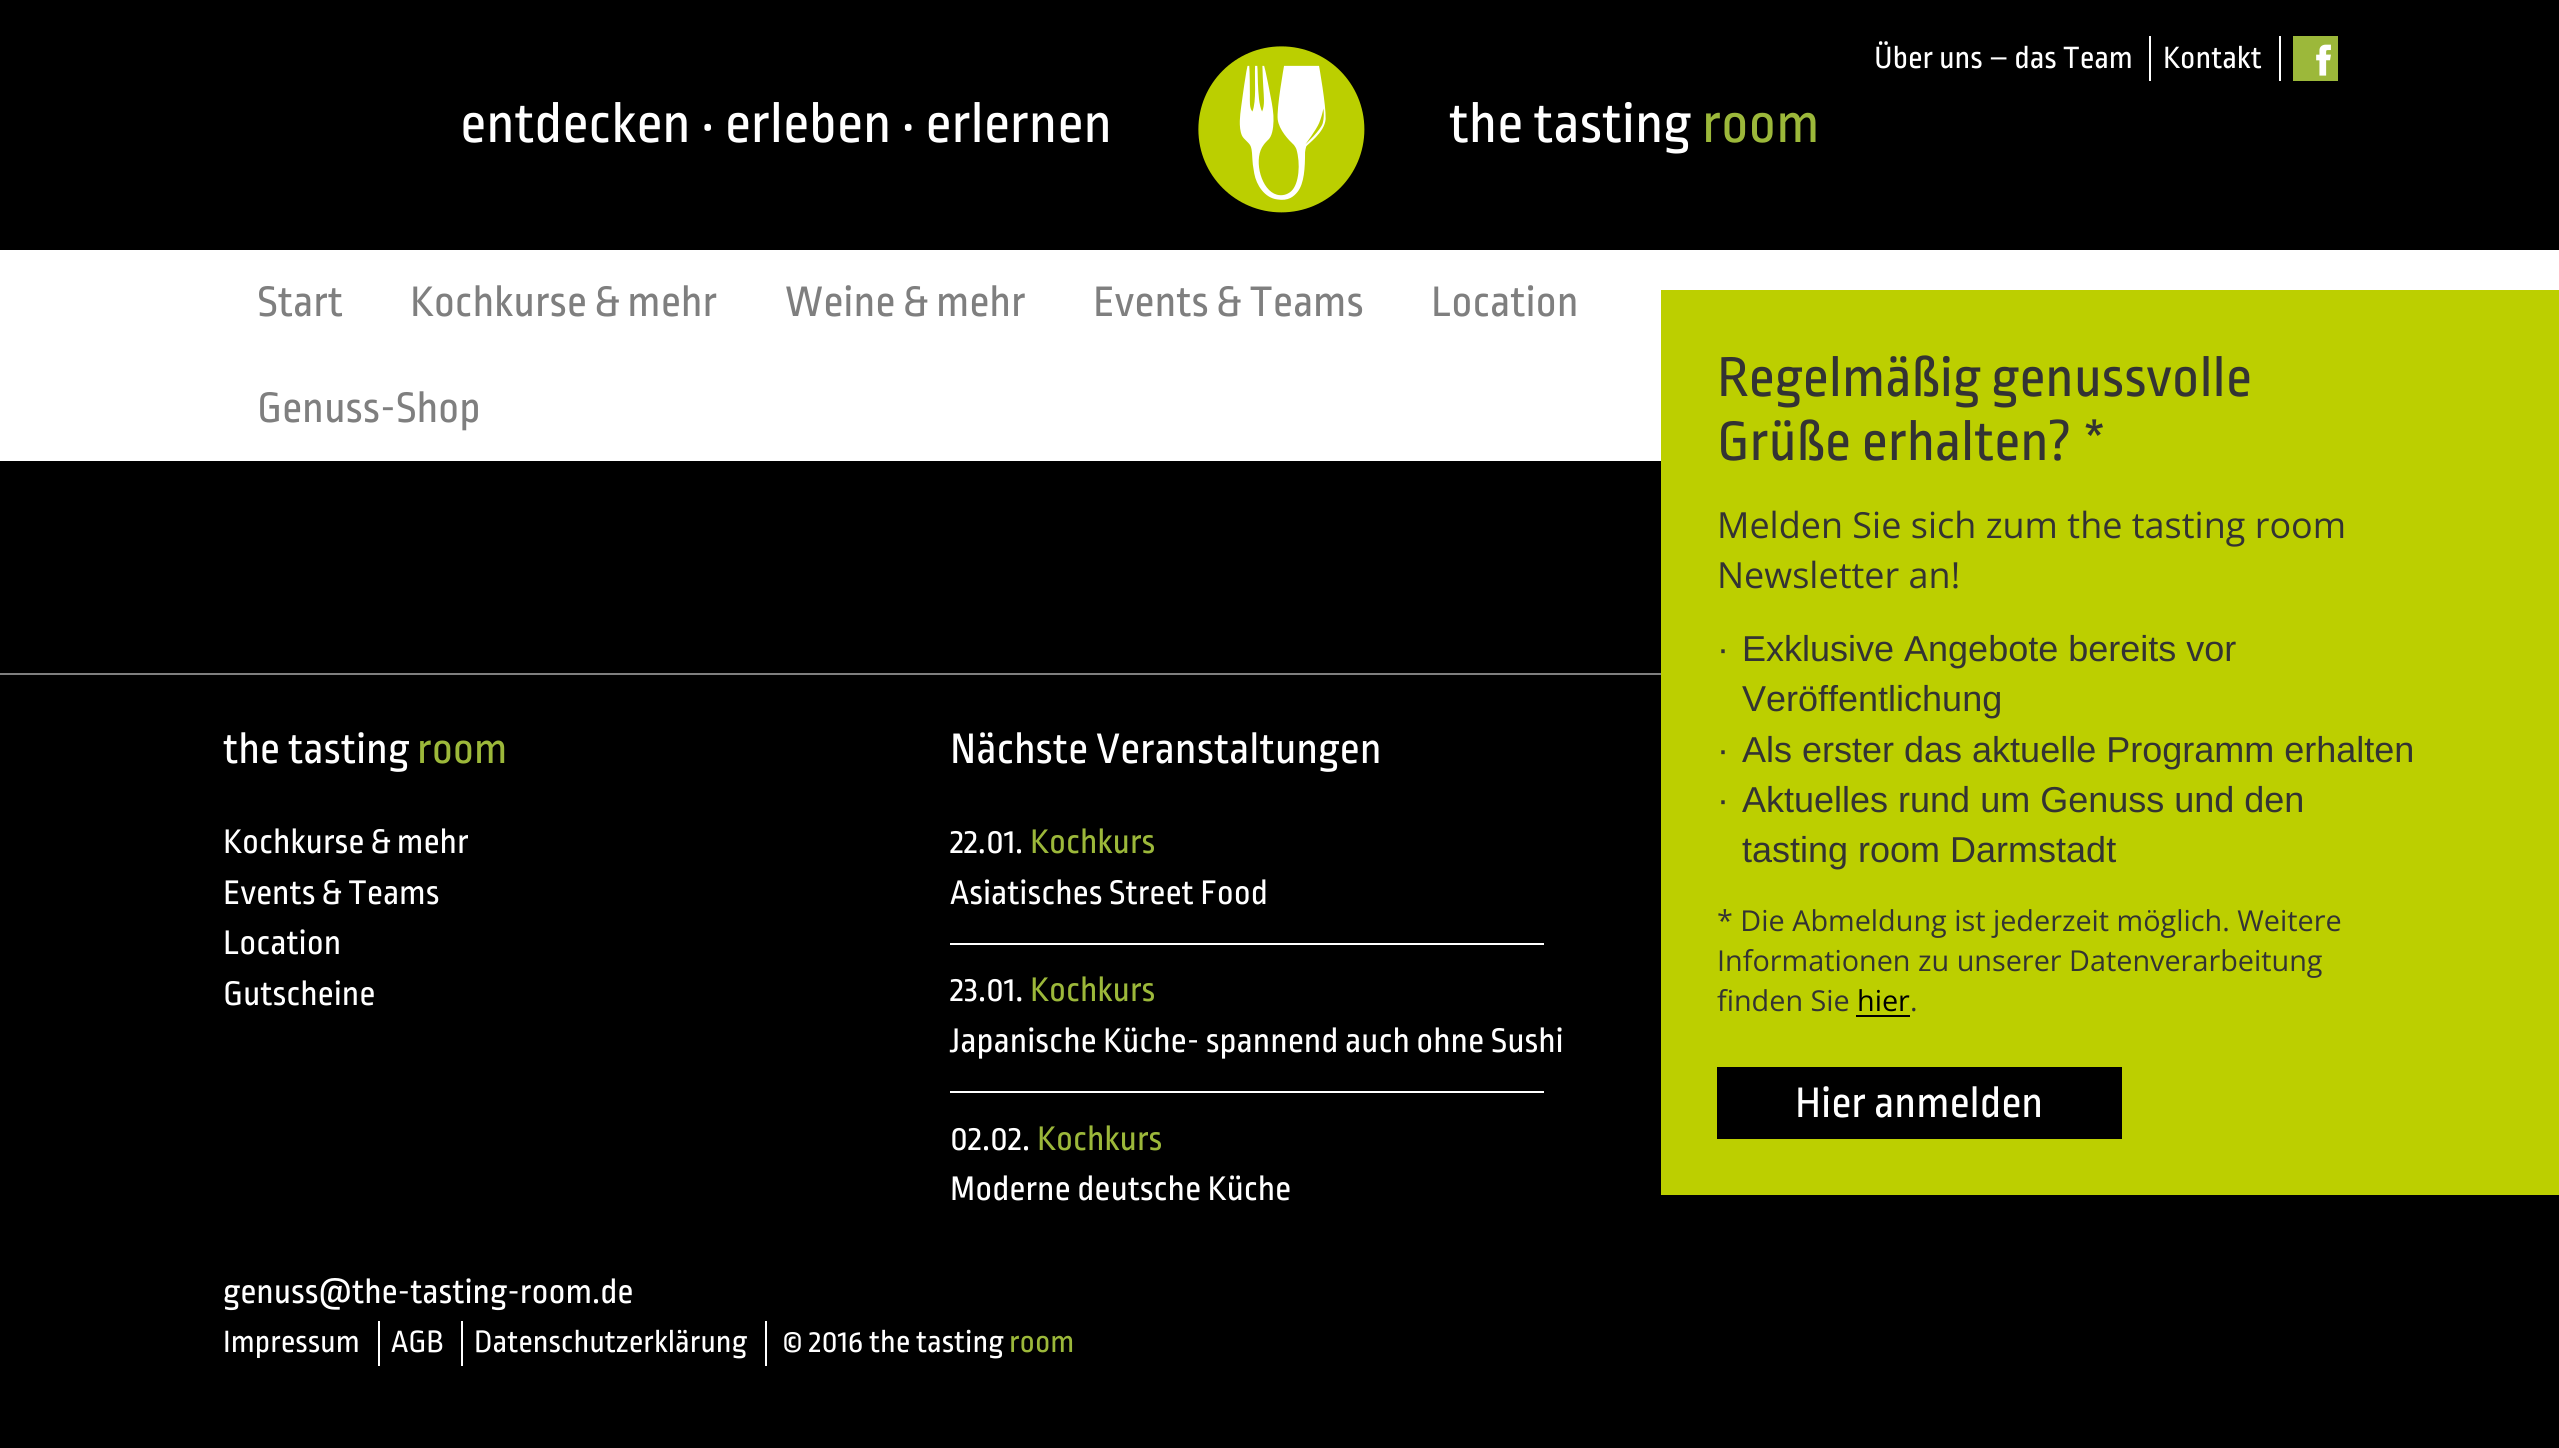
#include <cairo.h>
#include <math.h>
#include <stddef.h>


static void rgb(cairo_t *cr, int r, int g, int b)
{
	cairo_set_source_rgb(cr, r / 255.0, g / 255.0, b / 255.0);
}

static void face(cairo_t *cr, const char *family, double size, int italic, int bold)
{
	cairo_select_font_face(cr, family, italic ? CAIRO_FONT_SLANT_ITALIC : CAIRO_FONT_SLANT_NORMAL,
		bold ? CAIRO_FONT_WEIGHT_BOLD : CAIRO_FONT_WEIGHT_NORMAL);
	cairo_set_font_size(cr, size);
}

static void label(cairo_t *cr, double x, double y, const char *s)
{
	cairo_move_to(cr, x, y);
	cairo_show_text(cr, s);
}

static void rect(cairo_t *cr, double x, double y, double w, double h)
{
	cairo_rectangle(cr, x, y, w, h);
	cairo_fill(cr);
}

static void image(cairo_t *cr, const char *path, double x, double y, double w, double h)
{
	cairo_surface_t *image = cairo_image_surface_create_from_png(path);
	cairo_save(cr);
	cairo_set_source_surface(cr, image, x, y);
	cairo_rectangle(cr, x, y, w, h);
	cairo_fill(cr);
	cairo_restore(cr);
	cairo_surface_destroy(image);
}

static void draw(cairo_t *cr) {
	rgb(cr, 0, 0, 0);
	cairo_paint(cr);
	face(cr, "Ropa Sans", 58.5, 0, 0);
	rgb(cr, 255, 255, 255);
	label(cr, 460, 142, "entdecken · erleben · erlernen");
	image(cr, "image0.png", 1198, 46, 167, 167);
	label(cr, 1449, 142, "the tasting");
	rgb(cr, 156, 184, 58);
	label(cr, 1702, 142, "room");
	rgb(cr, 255, 255, 255);
	rect(cr, 2149, 36, 2, 45);
	face(cr, "Ropa Sans", 32.5, 0, 0);
	label(cr, 1874, 68, "Über uns – das Team");
	rect(cr, 2279, 36, 2, 45);
	label(cr, 2163, 68, "Kontakt");
	rgb(cr, 156, 184, 58);
	rect(cr, 2293, 36, 45, 45);
	image(cr, "image1.png", 2316, 44, 15, 32);
	rgb(cr, 255, 255, 255);
	rect(cr, 0, 250, 2559, 211);
	face(cr, "Ropa Sans", 45, 0, 0);
	rgb(cr, 127, 127, 127);
	label(cr, 257, 316, "Start");
	label(cr, 410, 316, "Kochkurse & mehr");
	label(cr, 785, 316, "Weine & mehr");
	label(cr, 1093, 316, "Events & Teams");
	label(cr, 1431, 316, "Location");
	label(cr, 257, 422, "Genuss-Shop");
	rgb(cr, 255, 255, 255);
	label(cr, 223, 763, "the tasting");
	rgb(cr, 156, 184, 58);
	label(cr, 417, 763, "room");
	face(cr, "Ropa Sans", 36, 0, 0);
	rgb(cr, 255, 255, 255);
	label(cr, 223, 853, "Kochkurse & mehr");
	label(cr, 223, 904, "Events & Teams");
	label(cr, 223, 954, "Location");
	label(cr, 223, 1005, "Gutscheine");
	face(cr, "Ropa Sans", 45, 0, 0);
	label(cr, 950, 763, "Nächste Veranstaltungen");
	face(cr, "Ropa Sans", 36, 0, 0);
	label(cr, 950, 853, "22.01.");
	rgb(cr, 156, 184, 58);
	label(cr, 1030, 853, "Kochkurs");
	rgb(cr, 255, 255, 255);
	label(cr, 950, 904, "Asiatisches Street Food");
	rect(cr, 950, 943, 594, 2);
	label(cr, 950, 1001, "23.01.");
	rgb(cr, 156, 184, 58);
	label(cr, 1030, 1001, "Kochkurs");
	rgb(cr, 255, 255, 255);
	label(cr, 950, 1052, "Japanische Küche- spannend auch ohne Sushi");
	rect(cr, 950, 1091, 594, 2);
	label(cr, 950, 1150, "02.02.");
	rgb(cr, 156, 184, 58);
	label(cr, 1037, 1150, "Kochkurs");
	rgb(cr, 255, 255, 255);
	label(cr, 950, 1200, "Moderne deutsche Küche");
	label(cr, 223, 1303, "genuss@the-tasting-room.de");
	rect(cr, 378, 1321, 2, 45);
	face(cr, "Ropa Sans", 32.5, 0, 0);
	label(cr, 223, 1352, "Impressum");
	rect(cr, 461, 1321, 2, 45);
	label(cr, 391, 1352, "AGB");
	rect(cr, 765, 1321, 2, 45);
	label(cr, 474, 1352, "Datenschutzerklärung");
	label(cr, 782, 1352, "© 2016 the tasting");
	rgb(cr, 156, 184, 58);
	label(cr, 1009, 1352, "room");
	rgb(cr, 127, 127, 127);
	rect(cr, 0, 673, 1661, 2);
	rgb(cr, 188, 207, 0);
	rect(cr, 1661, 290, 898, 905);
	face(cr, "Ropa Sans", 58.5, 0, 0);
	rgb(cr, 51, 51, 51);
	label(cr, 1717, 396, "Regelmäßig genussvolle");
	label(cr, 1717, 460, "Grüße erhalten? *");
	face(cr, "Open Sans", 36, 0, 0);
	label(cr, 1717, 538, "Melden Sie sich zum the tasting room");
	label(cr, 1717, 588, "Newsletter an!");
	face(cr, "Liberation Sans", 36, 0, 0);
	label(cr, 1717, 661, "·");
	label(cr, 1742, 661, "Exklusive Angebote bereits vor");
	label(cr, 1742, 711, "Veröffentlichung");
	label(cr, 1717, 762, "·");
	label(cr, 1742, 762, "Als erster das aktuelle Programm erhalten");
	label(cr, 1717, 812, "·");
	label(cr, 1742, 812, "Aktuelles rund um Genuss und den");
	label(cr, 1742, 862, "tasting room Darmstadt");
	face(cr, "Open Sans", 28.8, 0, 0);
	label(cr, 1717, 931, "* Die Abmeldung ist jederzeit möglich. Weitere");
	label(cr, 1717, 971, "Informationen zu unserer Datenverarbeitung");
	label(cr, 1717, 1011, "finden Sie");
	rgb(cr, 0, 0, 0);
	label(cr, 1857, 1011, "hier");
	rect(cr, 1856, 1015, 54, 2);
	rgb(cr, 51, 51, 51);
	label(cr, 1910, 1011, ".");
	rgb(cr, 0, 0, 0);
	rect(cr, 1717, 1067, 405, 72);
	face(cr, "Ropa Sans", 45, 0, 0);
	rgb(cr, 255, 255, 255);
	label(cr, 1795, 1117, "Hier anmelden");
}

int main(void) {
	cairo_surface_t *surface = cairo_image_surface_create(CAIRO_FORMAT_RGB24, 2559, 1448);
	cairo_t *cr = cairo_create(surface);
	cairo_font_options_t *options = cairo_font_options_create();
	cairo_font_options_set_hint_metrics(options, CAIRO_HINT_METRICS_OFF);
	cairo_font_options_set_hint_style(options, CAIRO_HINT_STYLE_NONE);
	cairo_set_font_options(cr, options);
	cairo_set_miter_limit(cr, 4);
	draw(cr);
	cairo_surface_write_to_png(surface, "render.png");
	cairo_font_options_destroy(options);
	cairo_destroy(cr);
	cairo_surface_destroy(surface);
	return 0;
}
